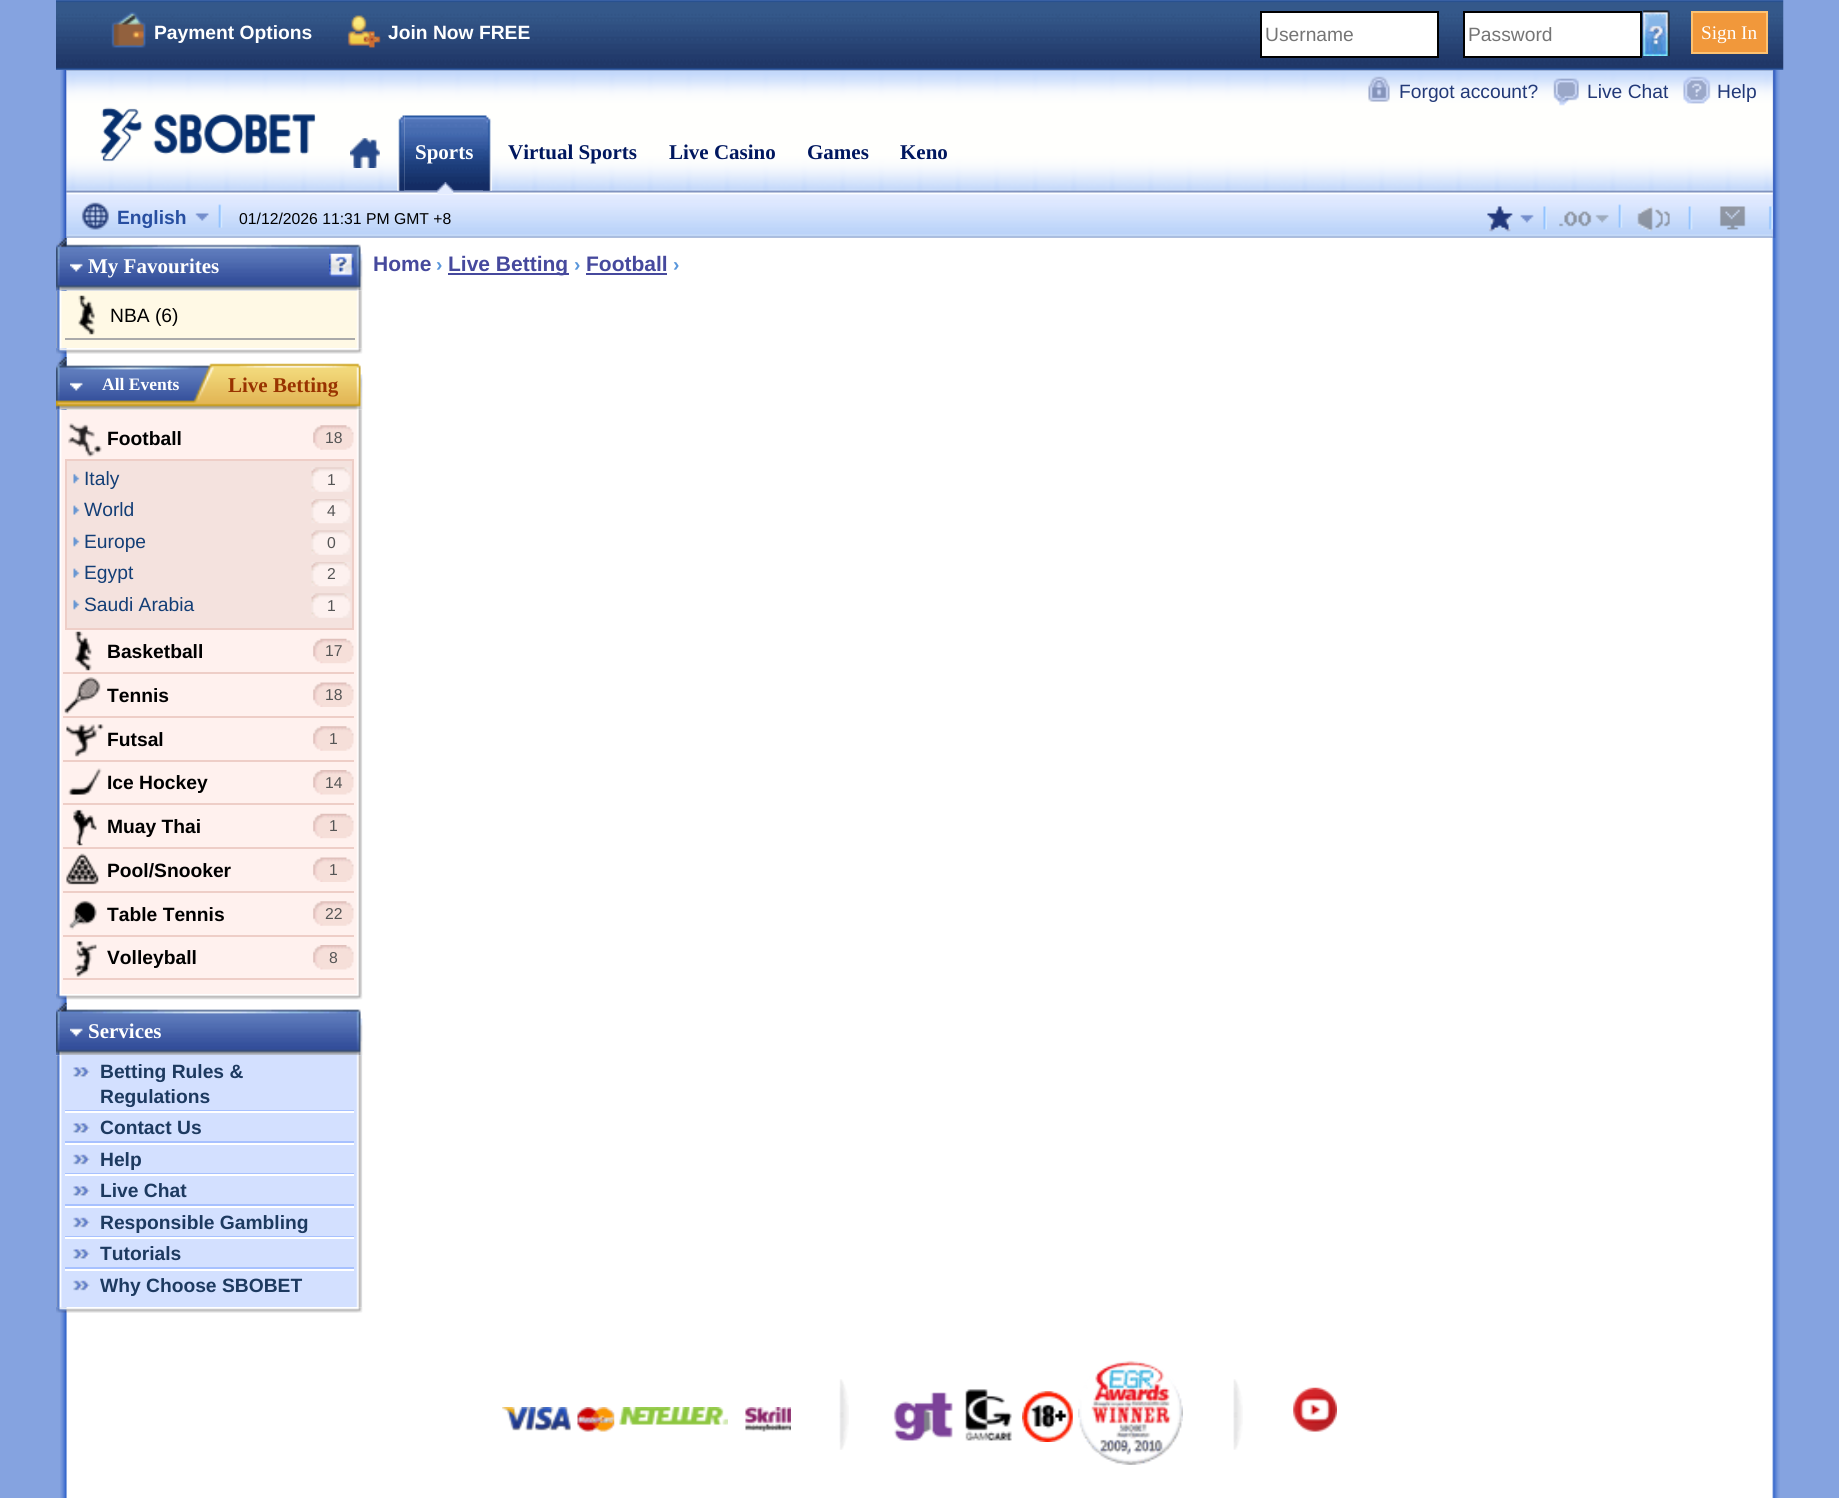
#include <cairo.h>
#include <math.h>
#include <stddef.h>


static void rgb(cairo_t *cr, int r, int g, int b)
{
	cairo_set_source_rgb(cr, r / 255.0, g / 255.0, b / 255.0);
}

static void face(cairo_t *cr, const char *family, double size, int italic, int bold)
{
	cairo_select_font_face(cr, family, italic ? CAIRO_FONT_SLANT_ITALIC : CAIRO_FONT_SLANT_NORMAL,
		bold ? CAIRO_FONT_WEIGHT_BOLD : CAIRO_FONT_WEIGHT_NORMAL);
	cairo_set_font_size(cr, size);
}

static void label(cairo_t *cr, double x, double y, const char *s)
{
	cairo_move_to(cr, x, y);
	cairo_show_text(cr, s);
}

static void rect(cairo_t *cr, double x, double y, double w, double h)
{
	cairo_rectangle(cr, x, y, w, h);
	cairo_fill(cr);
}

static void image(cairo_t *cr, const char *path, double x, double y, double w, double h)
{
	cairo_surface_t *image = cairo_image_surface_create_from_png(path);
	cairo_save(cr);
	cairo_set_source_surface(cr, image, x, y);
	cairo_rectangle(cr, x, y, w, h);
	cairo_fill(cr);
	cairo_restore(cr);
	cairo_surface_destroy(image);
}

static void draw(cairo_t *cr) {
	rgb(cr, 133, 163, 224);
	cairo_paint(cr);
	image(cr, "image0.png", 56, 0, 1728, 70);
	image(cr, "image1.png", 111, 12, 35, 36);
	face(cr, "Liberation Sans", 19.25, 0, 1);
	rgb(cr, 255, 255, 255);
	label(cr, 154, 39, "Payment Options");
	image(cr, "image2.png", 347, 15, 34, 33);
	label(cr, 388, 39, "Join Now FREE");
	cairo_rectangle(cr, 1261, 12, 177, 45);
	cairo_fill_preserve(cr);
	rgb(cr, 0, 0, 0);
	cairo_stroke(cr);
	face(cr, "Liberation Sans", 19.25, 0, 0);
	rgb(cr, 117, 117, 117);
	label(cr, 1265, 41, "Username");
	rgb(cr, 255, 255, 255);
	cairo_rectangle(cr, 1464, 12, 177, 45);
	cairo_fill_preserve(cr);
	rgb(cr, 0, 0, 0);
	cairo_stroke(cr);
	rgb(cr, 117, 117, 117);
	label(cr, 1468, 41, "Password");
	image(cr, "image3.png", 1643, 10, 27, 46);
	rgb(cr, 241, 152, 59);
	cairo_rectangle(cr, 1692, 12, 75, 41);
	cairo_fill_preserve(cr);
	rgb(cr, 253, 194, 113);
	cairo_stroke(cr);
	face(cr, "Liberation Serif", 19.25, 0, 0);
	rgb(cr, 255, 255, 255);
	label(cr, 1701, 39, "Sign In");
	image(cr, "image4.png", 60, 70, 1720, 1428);
	image(cr, "image5.png", 63, 70, 1713, 168);
	image(cr, "image6.png", 66, 70, 1707, 168);
	image(cr, "image7.png", 1368, 76, 22, 26);
	face(cr, "Liberation Sans", 19.25, 0, 0);
	rgb(cr, 34, 57, 120);
	label(cr, 1399, 98, "Forgot account?");
	image(cr, "image8.png", 1553, 78, 26, 28);
	label(cr, 1587, 98, "Live Chat");
	image(cr, "image9.png", 1683, 76, 28, 28);
	label(cr, 1717, 98, "Help");
	image(cr, "image10.png", 100, 107, 216, 55);
	image(cr, "image11.png", 350, 138, 30, 30);
	image(cr, "image12.png", 397, 115, 8, 76);
	image(cr, "image13.png", 404, 115, 79, 76);
	face(cr, "Liberation Serif", 21, 0, 1);
	rgb(cr, 255, 255, 255);
	label(cr, 415, 159, "Sports");
	image(cr, "image14.png", 437, 182, 17, 12);
	image(cr, "image15.png", 483, 115, 9, 76);
	rgb(cr, 0, 23, 95);
	label(cr, 508, 159, "Virtual Sports");
	label(cr, 669, 159, "Live Casino");
	label(cr, 807, 159, "Games");
	label(cr, 900, 159, "Keno");
	image(cr, "image16.png", 81, 202, 28, 28);
	face(cr, "Liberation Sans", 19.25, 0, 1);
	rgb(cr, 39, 78, 160);
	label(cr, 117, 224, "English");
	image(cr, "image17.png", 195, 204, 28, 24);
	face(cr, "Liberation Sans", 15.75, 0, 0);
	rgb(cr, 0, 0, 0);
	label(cr, 239, 224, "01/12/2026 11:31 PM GMT +8");
	image(cr, "image18.png", 1487, 206, 60, 26);
	image(cr, "image19.png", 1559, 204, 64, 24);
	image(cr, "image20.png", 1637, 206, 56, 26);
	image(cr, "image21.png", 1719, 206, 54, 24);
	image(cr, "image22.png", 56, 238, 307, 53);
	image(cr, "image23.png", 70, 263, 13, 9);
	face(cr, "Liberation Serif", 21, 0, 1);
	rgb(cr, 255, 255, 255);
	label(cr, 88, 273, "My Favourites");
	image(cr, "image24.png", 329, 253, 25, 24);
	rgb(cr, 255, 249, 229);
	rect(cr, 56, 291, 306, 57);
	image(cr, "image25.png", 56, 290, 307, 59);
	image(cr, "image26.png", 78, 295, 17, 40);
	face(cr, "Liberation Sans", 19.25, 0, 0);
	rgb(cr, 0, 0, 0);
	label(cr, 110, 322, "NBA (6)");
	rgb(cr, 170, 170, 170);
	rect(cr, 65, 338, 290, 2);
	image(cr, "image27.png", 56, 348, 307, 6);
	image(cr, "image28.png", 56, 357, 307, 53);
	image(cr, "image29.png", 70, 382, 13, 9);
	face(cr, "Liberation Serif", 17.5, 0, 1);
	rgb(cr, 255, 255, 255);
	label(cr, 102, 390, "All Events");
	face(cr, "Liberation Serif", 21, 0, 1);
	rgb(cr, 153, 51, 0);
	label(cr, 228, 392, "Live Betting");
	rgb(cr, 255, 241, 238);
	rect(cr, 56, 410, 306, 584);
	image(cr, "image30.png", 56, 409, 307, 585);
	image(cr, "image31.png", 68, 423, 34, 34);
	face(cr, "Liberation Sans", 19.25, 0, 1);
	rgb(cr, 0, 0, 0);
	label(cr, 107, 445, "Football");
	image(cr, "image32.png", 313, 425, 41, 25);
	face(cr, "Liberation Sans", 15.75, 0, 0);
	rgb(cr, 85, 85, 85);
	label(cr, 325, 443, "18");
	rgb(cr, 244, 226, 222);
	cairo_rectangle(cr, 66, 460, 287, 169);
	cairo_fill_preserve(cr);
	rgb(cr, 238, 206, 199);
	cairo_stroke(cr);
	image(cr, "image33.png", 73, 473, 7, 11);
	face(cr, "Liberation Sans", 19.25, 0, 0);
	rgb(cr, 19, 62, 118);
	label(cr, 84, 485, "Italy");
	image(cr, "image34.png", 311, 467, 40, 25);
	face(cr, "Liberation Sans", 15.75, 0, 0);
	rgb(cr, 85, 85, 85);
	label(cr, 327, 485, "1");
	image(cr, "image35.png", 73, 505, 7, 10);
	face(cr, "Liberation Sans", 19.25, 0, 0);
	rgb(cr, 19, 62, 118);
	label(cr, 84, 516, "World");
	image(cr, "image36.png", 311, 499, 40, 25);
	face(cr, "Liberation Sans", 15.75, 0, 0);
	rgb(cr, 85, 85, 85);
	label(cr, 327, 516, "4");
	image(cr, "image33.png", 73, 536, 7, 11);
	face(cr, "Liberation Sans", 19.25, 0, 0);
	rgb(cr, 19, 62, 118);
	label(cr, 84, 548, "Europe");
	image(cr, "image34.png", 311, 530, 40, 25);
	face(cr, "Liberation Sans", 15.75, 0, 0);
	rgb(cr, 85, 85, 85);
	label(cr, 327, 548, "0");
	image(cr, "image35.png", 73, 568, 7, 10);
	face(cr, "Liberation Sans", 19.25, 0, 0);
	rgb(cr, 19, 62, 118);
	label(cr, 84, 579, "Egypt");
	image(cr, "image36.png", 311, 562, 40, 25);
	face(cr, "Liberation Sans", 15.75, 0, 0);
	rgb(cr, 85, 85, 85);
	label(cr, 327, 579, "2");
	image(cr, "image33.png", 73, 599, 7, 11);
	face(cr, "Liberation Sans", 19.25, 0, 0);
	rgb(cr, 19, 62, 118);
	label(cr, 84, 611, "Saudi Arabia");
	image(cr, "image34.png", 311, 593, 40, 25);
	face(cr, "Liberation Sans", 15.75, 0, 0);
	rgb(cr, 85, 85, 85);
	label(cr, 327, 611, "1");
	rgb(cr, 238, 206, 199);
	rect(cr, 63, 672, 291, 2);
	image(cr, "image37.png", 74, 631, 18, 40);
	face(cr, "Liberation Sans", 19.25, 0, 1);
	rgb(cr, 0, 0, 0);
	label(cr, 107, 658, "Basketball");
	image(cr, "image38.png", 313, 638, 41, 26);
	face(cr, "Liberation Sans", 15.75, 0, 0);
	rgb(cr, 85, 85, 85);
	label(cr, 325, 656, "17");
	rgb(cr, 238, 206, 199);
	rect(cr, 63, 716, 291, 2);
	image(cr, "image39.png", 64, 677, 37, 37);
	face(cr, "Liberation Sans", 19.25, 0, 1);
	rgb(cr, 0, 0, 0);
	label(cr, 107, 702, "Tennis");
	image(cr, "image40.png", 313, 682, 41, 25);
	face(cr, "Liberation Sans", 15.75, 0, 0);
	rgb(cr, 85, 85, 85);
	label(cr, 325, 700, "18");
	rgb(cr, 238, 206, 199);
	rect(cr, 63, 760, 291, 2);
	image(cr, "image41.png", 66, 724, 38, 33);
	face(cr, "Liberation Sans", 19.25, 0, 1);
	rgb(cr, 0, 0, 0);
	label(cr, 107, 746, "Futsal");
	image(cr, "image32.png", 313, 726, 41, 25);
	face(cr, "Liberation Sans", 15.75, 0, 0);
	rgb(cr, 85, 85, 85);
	label(cr, 329, 744, "1");
	rgb(cr, 238, 206, 199);
	rect(cr, 63, 803, 291, 2);
	image(cr, "image42.png", 68, 768, 34, 27);
	face(cr, "Liberation Sans", 19.25, 0, 1);
	rgb(cr, 0, 0, 0);
	label(cr, 107, 789, "Ice Hockey");
	image(cr, "image43.png", 313, 770, 41, 25);
	face(cr, "Liberation Sans", 15.75, 0, 0);
	rgb(cr, 85, 85, 85);
	label(cr, 325, 788, "14");
	rgb(cr, 238, 206, 199);
	rect(cr, 63, 847, 291, 2);
	image(cr, "image44.png", 73, 809, 24, 37);
	face(cr, "Liberation Sans", 19.25, 0, 1);
	rgb(cr, 0, 0, 0);
	label(cr, 107, 833, "Muay Thai");
	image(cr, "image38.png", 313, 813, 41, 26);
	face(cr, "Liberation Sans", 15.75, 0, 0);
	rgb(cr, 85, 85, 85);
	label(cr, 329, 831, "1");
	rgb(cr, 238, 206, 199);
	rect(cr, 63, 891, 291, 2);
	image(cr, "image45.png", 66, 853, 33, 32);
	face(cr, "Liberation Sans", 19.25, 0, 1);
	rgb(cr, 0, 0, 0);
	label(cr, 107, 877, "Pool/Snooker");
	image(cr, "image40.png", 313, 857, 41, 25);
	face(cr, "Liberation Sans", 15.75, 0, 0);
	rgb(cr, 85, 85, 85);
	label(cr, 329, 875, "1");
	rgb(cr, 238, 206, 199);
	rect(cr, 63, 935, 291, 2);
	image(cr, "image46.png", 68, 900, 29, 30);
	face(cr, "Liberation Sans", 19.25, 0, 1);
	rgb(cr, 0, 0, 0);
	label(cr, 107, 921, "Table Tennis");
	image(cr, "image32.png", 313, 901, 41, 25);
	face(cr, "Liberation Sans", 15.75, 0, 0);
	rgb(cr, 85, 85, 85);
	label(cr, 325, 919, "22");
	rgb(cr, 238, 206, 199);
	rect(cr, 63, 978, 291, 2);
	image(cr, "image47.png", 74, 941, 23, 36);
	face(cr, "Liberation Sans", 19.25, 0, 1);
	rgb(cr, 0, 0, 0);
	label(cr, 107, 964, "Volleyball");
	image(cr, "image43.png", 313, 945, 41, 25);
	face(cr, "Liberation Sans", 15.75, 0, 0);
	rgb(cr, 85, 85, 85);
	label(cr, 329, 963, "8");
	image(cr, "image48.png", 56, 994, 307, 6);
	image(cr, "image49.png", 56, 1002, 307, 54);
	image(cr, "image50.png", 70, 1028, 13, 9);
	face(cr, "Liberation Serif", 21, 0, 1);
	rgb(cr, 255, 255, 255);
	label(cr, 88, 1038, "Services");
	rgb(cr, 211, 224, 255);
	rect(cr, 56, 1055, 306, 252);
	image(cr, "image51.png", 56, 1055, 307, 253);
	image(cr, "image52.png", 73, 1067, 17, 10);
	rgb(cr, 167, 193, 255);
	rect(cr, 65, 1110, 289, 1);
	face(cr, "Liberation Sans", 19.25, 0, 1);
	rgb(cr, 29, 58, 96);
	label(cr, 100, 1078, "Betting Rules &");
	label(cr, 100, 1103, "Regulations");
	image(cr, "image52.png", 73, 1123, 17, 10);
	rgb(cr, 255, 255, 255);
	rect(cr, 65, 1111, 289, 2);
	rgb(cr, 167, 193, 255);
	rect(cr, 65, 1141, 289, 2);
	rgb(cr, 29, 58, 96);
	label(cr, 100, 1134, "Contact Us");
	image(cr, "image53.png", 73, 1154, 17, 11);
	rgb(cr, 255, 255, 255);
	rect(cr, 65, 1143, 289, 2);
	rgb(cr, 167, 193, 255);
	rect(cr, 65, 1173, 289, 1);
	rgb(cr, 29, 58, 96);
	label(cr, 100, 1166, "Help");
	image(cr, "image52.png", 73, 1186, 17, 10);
	rgb(cr, 255, 255, 255);
	rect(cr, 65, 1174, 289, 2);
	rgb(cr, 167, 193, 255);
	rect(cr, 65, 1204, 289, 2);
	rgb(cr, 29, 58, 96);
	label(cr, 100, 1197, "Live Chat");
	image(cr, "image53.png", 73, 1217, 17, 11);
	rgb(cr, 255, 255, 255);
	rect(cr, 65, 1206, 289, 2);
	rgb(cr, 167, 193, 255);
	rect(cr, 65, 1236, 289, 1);
	rgb(cr, 29, 58, 96);
	label(cr, 100, 1229, "Responsible Gambling");
	image(cr, "image52.png", 73, 1249, 17, 10);
	rgb(cr, 255, 255, 255);
	rect(cr, 65, 1237, 289, 2);
	rgb(cr, 167, 193, 255);
	rect(cr, 65, 1267, 289, 2);
	rgb(cr, 29, 58, 96);
	label(cr, 100, 1260, "Tutorials");
	image(cr, "image53.png", 73, 1280, 17, 11);
	rgb(cr, 255, 255, 255);
	rect(cr, 65, 1269, 289, 2);
	rgb(cr, 29, 58, 96);
	label(cr, 100, 1292, "Why Choose SBOBET");
	image(cr, "image54.png", 56, 1307, 307, 6);
	face(cr, "Liberation Sans", 21, 0, 1);
	rgb(cr, 70, 73, 157);
	label(cr, 373, 271, "Home");
	face(cr, "Liberation Sans", 19.25, 0, 1);
	rgb(cr, 89, 150, 219);
	label(cr, 436, 271, "›");
	rgb(cr, 70, 73, 157);
	rect(cr, 448, 273, 121, 2);
	face(cr, "Liberation Sans", 21, 0, 1);
	label(cr, 448, 271, "Live Betting");
	face(cr, "Liberation Sans", 19.25, 0, 1);
	rgb(cr, 89, 150, 219);
	label(cr, 574, 271, "›");
	face(cr, "Liberation Sans", 21, 0, 1);
	rgb(cr, 70, 73, 157);
	label(cr, 586, 271, "Football");
	rect(cr, 586, 273, 81, 2);
	face(cr, "Liberation Sans", 19.25, 0, 1);
	rgb(cr, 89, 150, 219);
	label(cr, 673, 271, "›");
	image(cr, "image55.png", 502, 1407, 69, 24);
	image(cr, "image56.png", 577, 1407, 38, 25);
	image(cr, "image57.png", 619, 1407, 109, 18);
	image(cr, "image58.png", 745, 1407, 46, 25);
	image(cr, "image59.png", 839, 1379, 10, 71);
	image(cr, "image60.png", 893, 1392, 60, 49);
	image(cr, "image61.png", 965, 1389, 47, 52);
	image(cr, "image62.png", 1022, 1391, 51, 51);
	image(cr, "image63.png", 1078, 1360, 105, 105);
	image(cr, "image64.png", 1233, 1379, 10, 71);
	image(cr, "image65.png", 1293, 1387, 44, 45);
}

int main(void) {
	cairo_surface_t *surface = cairo_image_surface_create(CAIRO_FORMAT_RGB24, 1839, 1498);
	cairo_t *cr = cairo_create(surface);
	cairo_font_options_t *options = cairo_font_options_create();
	cairo_font_options_set_hint_metrics(options, CAIRO_HINT_METRICS_OFF);
	cairo_font_options_set_hint_style(options, CAIRO_HINT_STYLE_NONE);
	cairo_set_font_options(cr, options);
	cairo_set_miter_limit(cr, 4);
	draw(cr);
	cairo_surface_write_to_png(surface, "render.png");
	cairo_font_options_destroy(options);
	cairo_destroy(cr);
	cairo_surface_destroy(surface);
	return 0;
}
